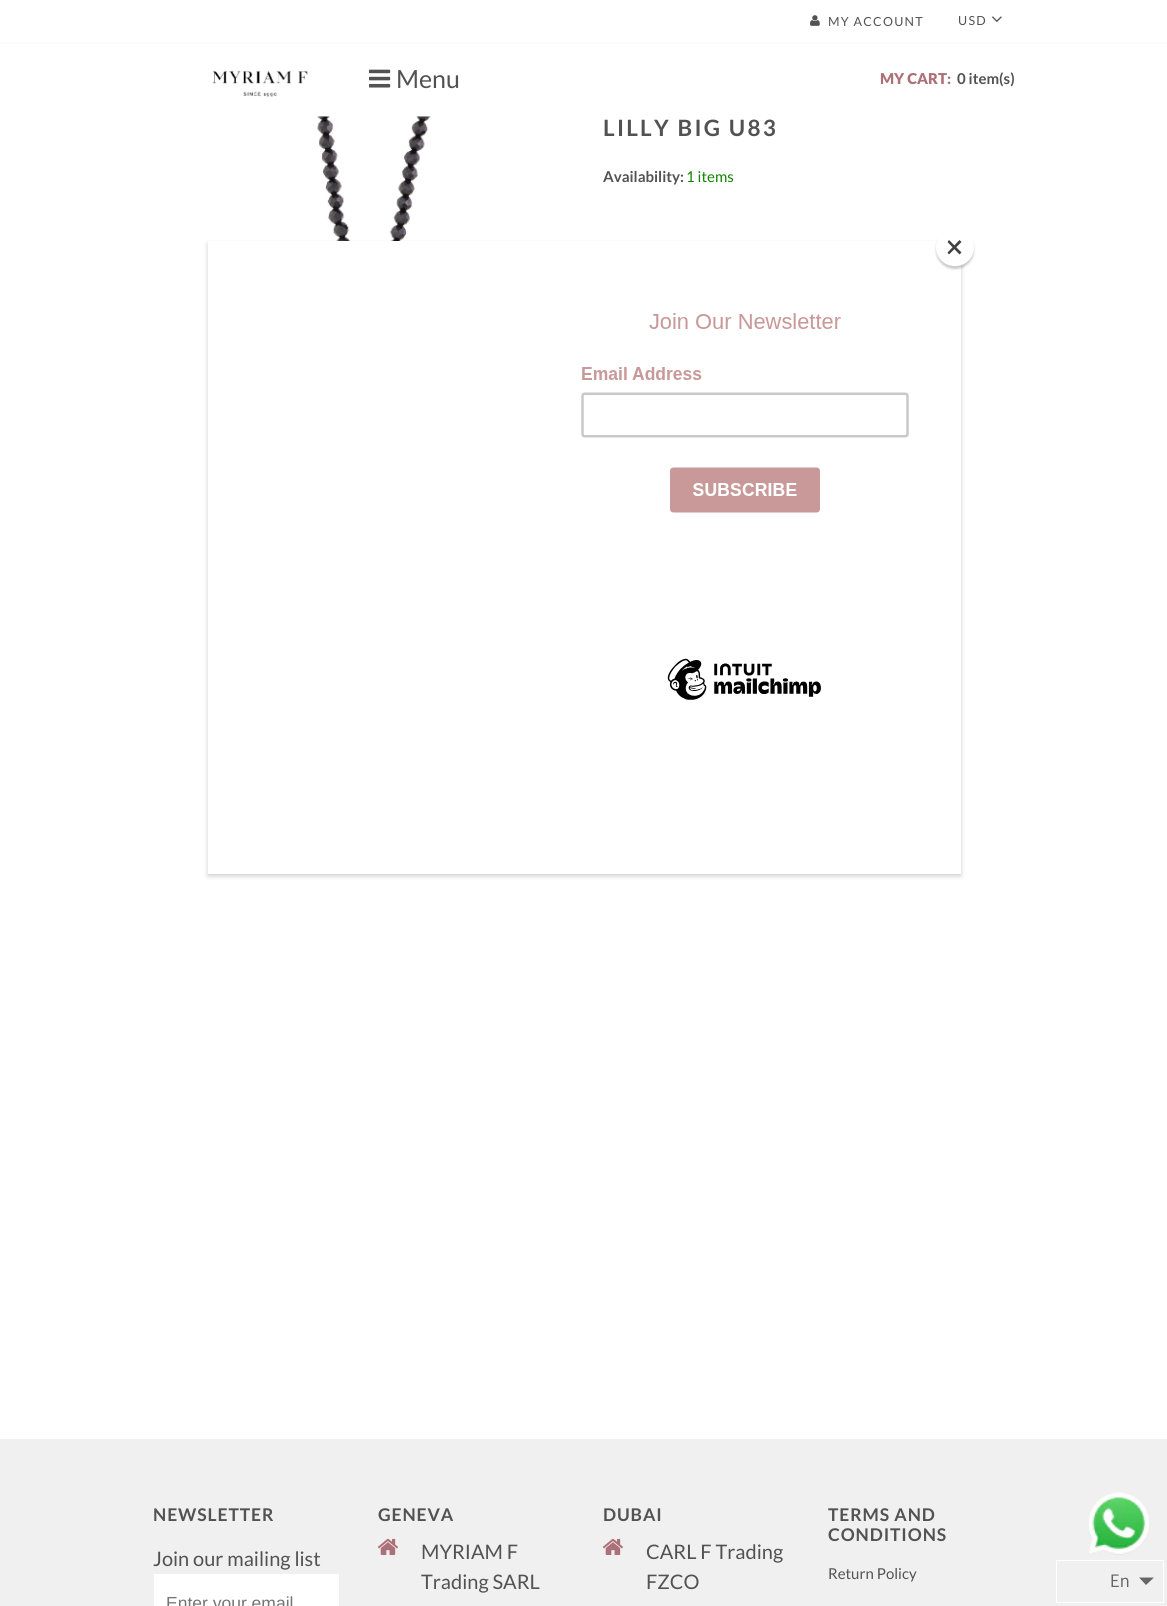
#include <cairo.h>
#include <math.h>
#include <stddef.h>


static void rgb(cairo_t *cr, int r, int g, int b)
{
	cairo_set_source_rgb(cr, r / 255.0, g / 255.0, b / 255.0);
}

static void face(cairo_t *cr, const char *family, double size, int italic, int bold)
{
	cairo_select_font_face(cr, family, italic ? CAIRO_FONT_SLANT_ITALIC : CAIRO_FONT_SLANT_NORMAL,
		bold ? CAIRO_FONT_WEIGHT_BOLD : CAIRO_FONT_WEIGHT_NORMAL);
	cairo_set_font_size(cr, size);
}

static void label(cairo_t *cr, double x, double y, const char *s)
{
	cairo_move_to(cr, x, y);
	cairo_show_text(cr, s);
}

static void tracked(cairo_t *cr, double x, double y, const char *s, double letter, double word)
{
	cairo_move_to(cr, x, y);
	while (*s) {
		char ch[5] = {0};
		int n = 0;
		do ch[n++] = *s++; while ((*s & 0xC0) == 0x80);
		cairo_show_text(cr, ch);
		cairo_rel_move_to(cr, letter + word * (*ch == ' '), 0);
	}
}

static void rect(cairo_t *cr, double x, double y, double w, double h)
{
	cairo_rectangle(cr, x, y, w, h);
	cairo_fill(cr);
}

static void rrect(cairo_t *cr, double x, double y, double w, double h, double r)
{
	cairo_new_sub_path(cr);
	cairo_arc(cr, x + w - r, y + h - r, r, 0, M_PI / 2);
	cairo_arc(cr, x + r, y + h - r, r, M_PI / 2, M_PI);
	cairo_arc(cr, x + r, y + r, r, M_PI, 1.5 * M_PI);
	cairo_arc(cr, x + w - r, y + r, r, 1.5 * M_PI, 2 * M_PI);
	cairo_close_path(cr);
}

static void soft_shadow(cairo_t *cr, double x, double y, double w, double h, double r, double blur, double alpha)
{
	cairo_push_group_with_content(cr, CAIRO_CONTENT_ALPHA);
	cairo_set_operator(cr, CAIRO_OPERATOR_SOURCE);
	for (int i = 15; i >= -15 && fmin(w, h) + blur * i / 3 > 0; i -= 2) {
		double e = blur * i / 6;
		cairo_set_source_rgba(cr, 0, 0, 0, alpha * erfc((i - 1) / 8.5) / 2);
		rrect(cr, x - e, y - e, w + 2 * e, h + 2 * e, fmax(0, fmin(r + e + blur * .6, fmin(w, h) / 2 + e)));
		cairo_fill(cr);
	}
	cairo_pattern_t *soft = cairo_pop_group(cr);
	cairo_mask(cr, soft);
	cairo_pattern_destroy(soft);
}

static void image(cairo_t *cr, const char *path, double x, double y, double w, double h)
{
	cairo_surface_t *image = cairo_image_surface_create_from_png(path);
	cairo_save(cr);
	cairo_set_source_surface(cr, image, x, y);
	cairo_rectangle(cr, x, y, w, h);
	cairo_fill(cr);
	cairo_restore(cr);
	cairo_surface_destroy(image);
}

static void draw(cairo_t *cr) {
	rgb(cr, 255, 255, 255);
	cairo_paint(cr);
	rgb(cr, 249, 249, 249);
	rect(cr, 0, 43, 1167, 1);
	image(cr, "image0.png", 810, 15, 10, 11);
	face(cr, "Lato", 12.5, 0, 0);
	rgb(cr, 83, 82, 82);
	tracked(cr, 828, 26, "MY ACCOUNT", 1.25, 0);
	tracked(cr, 958, 25, "USD", 1.25, 0);
	image(cr, "image1.png", 992, 16, 10, 6);
	image(cr, "image2.png", 212, 70, 96, 27);
	image(cr, "image3.png", 369, 69, 22, 19);
	face(cr, "Lato", 25, 0, 0);
	label(cr, 396, 88, "Menu");
	face(cr, "Lato Black", 15, 0, 0);
	rgb(cr, 172, 113, 120);
	label(cr, 880, 84, "MY CART:");
	face(cr, "Lato", 15, 0, 1);
	rgb(cr, 83, 82, 82);
	label(cr, 957, 84, "0 item(s)");
	image(cr, "image4.png", 305, 116, 127, 125);
	face(cr, "Lato", 22.5, 0, 1);
	tracked(cr, 603, 136, "LILLY BIG U83", 2.25, 0);
	face(cr, "Lato", 15, 0, 1);
	label(cr, 603, 182, "Availability:");
	face(cr, "Lato", 15, 0, 0);
	rgb(cr, 17, 133, 2);
	label(cr, 686, 182, "1 items");
	rgb(cr, 240, 240, 240);
	rect(cr, 0, 1439, 1167, 167);
	face(cr, "Lato", 17.5, 0, 1);
	rgb(cr, 83, 82, 82);
	tracked(cr, 153, 1521, "NEWSLETTER", 0.9, 0);
	face(cr, "Lato", 20, 0, 0);
	label(cr, 153, 1566, "Join our mailing list");
	rgb(cr, 255, 255, 255);
	rect(cr, 154, 1574, 185, 32);
	face(cr, "Liberation Sans", 17.5, 0, 0);
	rgb(cr, 117, 117, 117);
	label(cr, 166, 1609, "Enter your email");
	face(cr, "Lato", 17.5, 0, 1);
	rgb(cr, 83, 82, 82);
	tracked(cr, 378, 1521, "GENEVA", 0.9, 0);
	image(cr, "image5.png", 377, 1538, 21, 17);
	face(cr, "Lato", 20, 0, 0);
	label(cr, 421, 1559, "MYRIAM F");
	label(cr, 421, 1589, "Trading SARL");
	face(cr, "Lato", 17.5, 0, 1);
	tracked(cr, 603, 1521, "DUBAI", 0.9, 0);
	image(cr, "image5.png", 602, 1538, 21, 17);
	face(cr, "Lato", 20, 0, 0);
	label(cr, 646, 1559, "CARL F Trading");
	label(cr, 646, 1589, "FZCO");
	face(cr, "Lato", 17.5, 0, 1);
	tracked(cr, 828, 1521, "TERMS AND", 0.9, 0);
	tracked(cr, 828, 1541, "CONDITIONS", 0.9, 0);
	face(cr, "Lato", 15, 0, 0);
	label(cr, 828, 1579, "Return Policy");
	rgb(cr, 0, 0, 0);
	soft_shadow(cr, 936, 231, 38, 38, 19, 1, 0.2);
	cairo_save(cr);
	cairo_set_fill_rule(cr, CAIRO_FILL_RULE_EVEN_ODD);
	cairo_new_path(cr);
	cairo_move_to(cr, 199, 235);
	cairo_line_to(cr, 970, 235);
	cairo_line_to(cr, 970, 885);
	cairo_line_to(cr, 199, 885);
	cairo_close_path(cr);
	cairo_move_to(cr, 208, 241);
	cairo_line_to(cr, 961, 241);
	cairo_line_to(cr, 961, 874);
	cairo_line_to(cr, 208, 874);
	cairo_close_path(cr);
	cairo_clip(cr);
	soft_shadow(cr, 208, 244, 753, 632, 0, 2.5, 0.2);
	cairo_restore(cr);
	rgb(cr, 255, 255, 255);
	rrect(cr, 936, 229, 38, 37, 18.5);
	cairo_fill(cr);
	rgb(cr, 65, 65, 65);
	cairo_new_path(cr);
	cairo_move_to(cr, 959.5, 240);
	cairo_line_to(cr, 961.5, 242);
	cairo_line_to(cr, 949, 254.5);
	cairo_line_to(cr, 947.5, 252.5);
	cairo_close_path(cr);
	cairo_fill(cr);
	cairo_new_path(cr);
	cairo_move_to(cr, 947.5, 242);
	cairo_line_to(cr, 949, 240);
	cairo_line_to(cr, 961.5, 252.5);
	cairo_line_to(cr, 959.5, 254.5);
	cairo_close_path(cr);
	cairo_fill(cr);
	image(cr, "image6.png", 305, 241, 623, 498);
	image(cr, "image7.png", 1088, 1492, 62, 63);
	cairo_rectangle(cr, 1056.5, 1560.5, 107, 42);
	rgb(cr, 255, 255, 255);
	cairo_set_line_width(cr, 1);
	cairo_stroke(cr);
	face(cr, "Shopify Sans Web", 17.5, 0, 0);
	rgb(cr, 102, 102, 102);
	label(cr, 1110, 1587, "En");
	cairo_new_path(cr);
	cairo_move_to(cr, 1139, 1577.5);
	cairo_line_to(cr, 1146, 1585);
	cairo_line_to(cr, 1154, 1577.5);
	cairo_close_path(cr);
	cairo_fill(cr);
}

int main(void) {
	cairo_surface_t *surface = cairo_image_surface_create(CAIRO_FORMAT_RGB24, 1167, 1606);
	cairo_t *cr = cairo_create(surface);
	cairo_font_options_t *options = cairo_font_options_create();
	cairo_font_options_set_hint_metrics(options, CAIRO_HINT_METRICS_OFF);
	cairo_font_options_set_hint_style(options, CAIRO_HINT_STYLE_NONE);
	cairo_set_font_options(cr, options);
	cairo_set_miter_limit(cr, 4);
	draw(cr);
	cairo_surface_write_to_png(surface, "render.png");
	cairo_font_options_destroy(options);
	cairo_destroy(cr);
	cairo_surface_destroy(surface);
	return 0;
}
